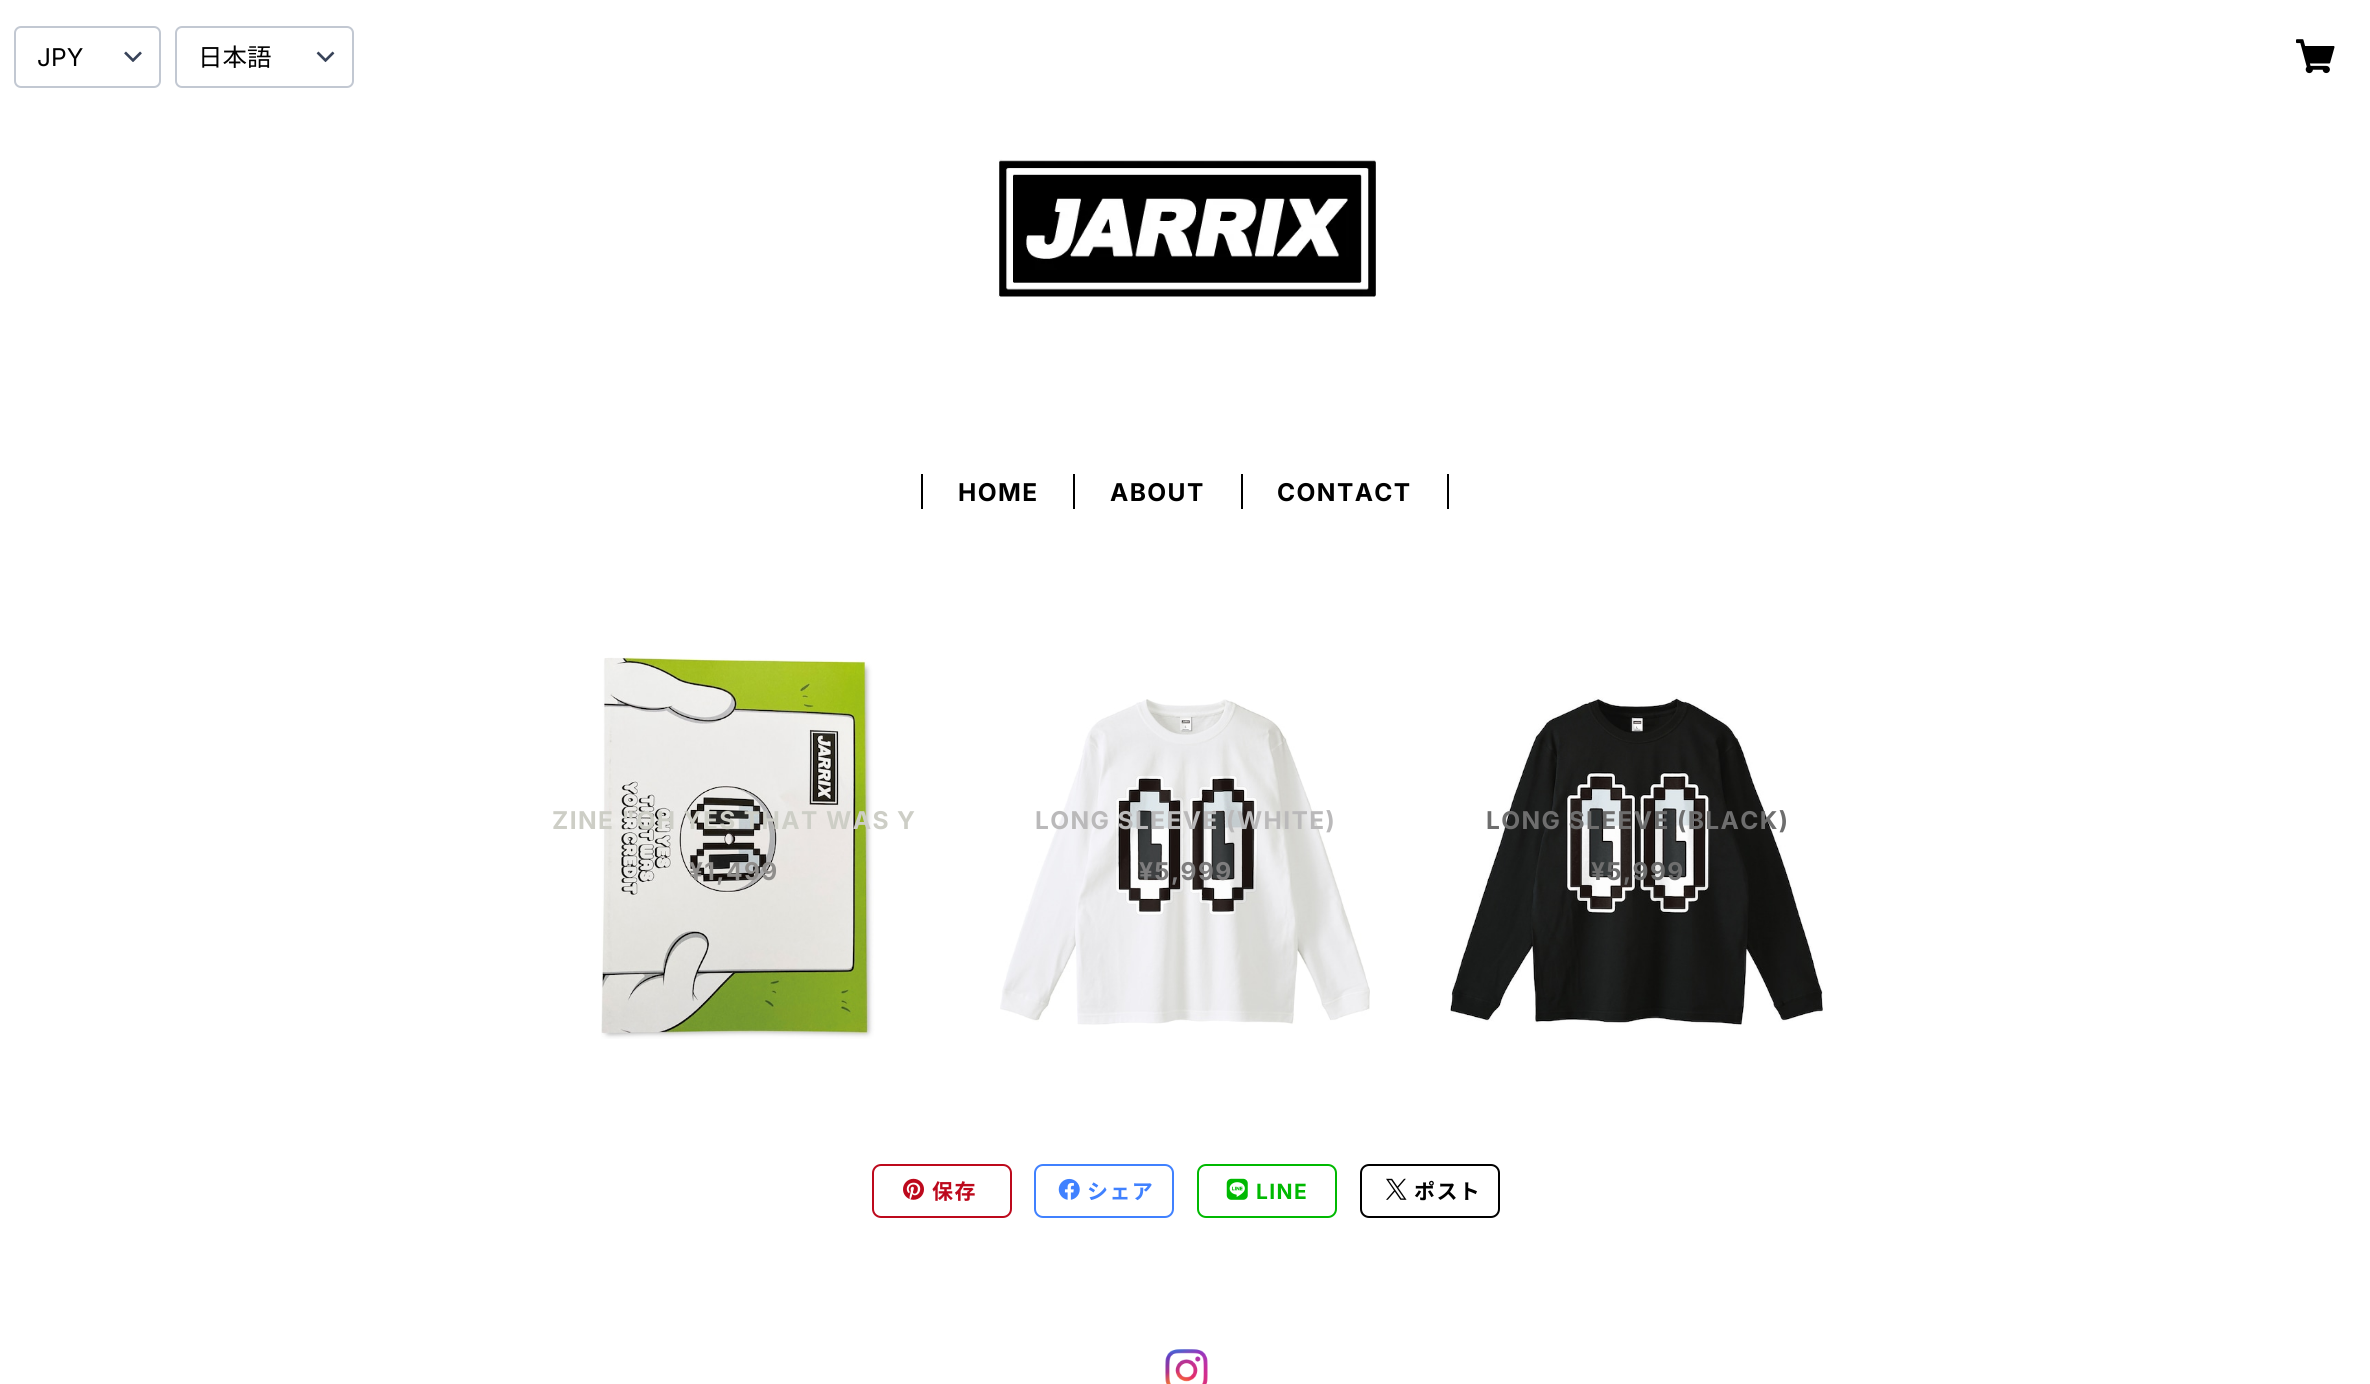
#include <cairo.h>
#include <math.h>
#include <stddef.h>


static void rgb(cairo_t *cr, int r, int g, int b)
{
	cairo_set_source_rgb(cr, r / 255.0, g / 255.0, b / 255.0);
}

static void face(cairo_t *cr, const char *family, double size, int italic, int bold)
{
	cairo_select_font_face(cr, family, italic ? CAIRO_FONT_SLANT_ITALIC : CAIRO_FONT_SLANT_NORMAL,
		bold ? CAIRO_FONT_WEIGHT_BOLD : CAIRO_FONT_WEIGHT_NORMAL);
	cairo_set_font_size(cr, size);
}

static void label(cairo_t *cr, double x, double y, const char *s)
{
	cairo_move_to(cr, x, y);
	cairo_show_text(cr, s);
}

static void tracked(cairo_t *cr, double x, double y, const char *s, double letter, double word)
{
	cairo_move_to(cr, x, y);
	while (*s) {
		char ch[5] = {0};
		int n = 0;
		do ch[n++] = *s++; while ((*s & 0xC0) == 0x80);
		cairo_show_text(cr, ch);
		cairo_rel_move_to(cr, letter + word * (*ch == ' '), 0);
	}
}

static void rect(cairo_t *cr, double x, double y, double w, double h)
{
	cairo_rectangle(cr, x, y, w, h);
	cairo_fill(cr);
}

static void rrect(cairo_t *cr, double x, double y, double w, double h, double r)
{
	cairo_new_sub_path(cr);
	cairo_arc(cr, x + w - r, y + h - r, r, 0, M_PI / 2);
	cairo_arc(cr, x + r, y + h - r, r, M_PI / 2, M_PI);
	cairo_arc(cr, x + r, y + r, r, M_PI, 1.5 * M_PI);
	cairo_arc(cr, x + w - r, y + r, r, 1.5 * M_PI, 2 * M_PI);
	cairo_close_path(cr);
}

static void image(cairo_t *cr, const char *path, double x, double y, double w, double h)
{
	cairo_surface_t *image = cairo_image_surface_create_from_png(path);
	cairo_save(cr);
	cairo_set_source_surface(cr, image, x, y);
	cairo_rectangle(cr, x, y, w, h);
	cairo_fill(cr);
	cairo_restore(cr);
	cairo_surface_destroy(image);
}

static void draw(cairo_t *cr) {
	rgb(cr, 255, 255, 255);
	cairo_paint(cr);
	rrect(cr, 15, 27, 145, 60, 6);
	rgb(cr, 194, 200, 210);
	cairo_stroke(cr);
	face(cr, "Inter", 24.5, 0, 0);
	rgb(cr, 0, 0, 0);
	label(cr, 37, 66, "JPY");
	image(cr, "image0.png", 124, 51, 18, 11);
	rrect(cr, 176, 27, 177, 60, 6);
	rgb(cr, 194, 200, 210);
	cairo_stroke(cr);
	face(cr, "Noto Sans JP", 24.5, 0, 0);
	rgb(cr, 0, 0, 0);
	label(cr, 198, 66, "日本語");
	image(cr, "image1.png", 316, 51, 19, 12);
	image(cr, "image2.png", 2296, 39, 39, 35);
	image(cr, "image3.png", 998, 159, 378, 138);
	rect(cr, 1073, 474, 2, 35);
	rect(cr, 921, 474, 2, 35);
	face(cr, "Inter", 24.5, 0, 1);
	tracked(cr, 958, 501, "HOME", 1.4, 0);
	rect(cr, 1241, 474, 2, 35);
	tracked(cr, 1110, 501, "ABOUT", 1.4, 0);
	rect(cr, 1447, 474, 2, 35);
	tracked(cr, 1277, 501, "CONTACT", 1.4, 0);
	image(cr, "image4.png", 601, 657, 274, 382);
	rgb(cr, 205, 206, 198);
	tracked(cr, 552, 829, "ZINE \"OH YES THAT WAS Y", 1.4, 0);
	rgb(cr, 144, 142, 140);
	tracked(cr, 689, 880, "¥1,499", 1.4, 0);
	image(cr, "image5.png", 1000, 699, 370, 326);
	rgb(cr, 186, 185, 186);
	tracked(cr, 1035, 829, "LONG SLEEVE (WHITE)", 1.4, 0);
	rgb(cr, 126, 125, 126);
	tracked(cr, 1139, 880, "¥5,999", 1.4, 0);
	image(cr, "image6.png", 1450, 697, 373, 329);
	rgb(cr, 110, 110, 110);
	tracked(cr, 1486, 829, "LONG SLEEVE (BLACK)", 1.4, 0);
	tracked(cr, 1591, 880, "¥5,999", 1.4, 0);
	rrect(cr, 873, 1165, 138, 52, 8);
	rgb(cr, 189, 9, 28);
	cairo_stroke(cr);
	image(cr, "image7.png", 903, 1178, 21, 22);
	face(cr, "Noto Sans JP", 21, 0, 1);
	tracked(cr, 932, 1199, "保存", 1.4, 0);
	rrect(cr, 1035, 1165, 138, 52, 8);
	rgb(cr, 64, 129, 255);
	cairo_stroke(cr);
	image(cr, "image8.png", 1058, 1178, 22, 22);
	tracked(cr, 1087, 1199, "シェア", 1.4, 0);
	rrect(cr, 1198, 1165, 138, 52, 8);
	rgb(cr, 0, 185, 1);
	cairo_stroke(cr);
	image(cr, "image9.png", 1226, 1178, 22, 22);
	face(cr, "Inter", 21, 0, 1);
	tracked(cr, 1256, 1199, "LINE", 1.4, 0);
	rrect(cr, 1361, 1165, 138, 52, 8);
	rgb(cr, 0, 0, 0);
	cairo_stroke(cr);
	image(cr, "image10.png", 1386, 1178, 21, 22);
	face(cr, "Noto Sans JP", 21, 0, 1);
	tracked(cr, 1414, 1199, "ポスト", 1.4, 0);
	image(cr, "image11.png", 1165, 1349, 43, 35);
}

int main(void) {
	cairo_surface_t *surface = cairo_image_surface_create(CAIRO_FORMAT_RGB24, 2370, 1384);
	cairo_t *cr = cairo_create(surface);
	cairo_font_options_t *options = cairo_font_options_create();
	cairo_font_options_set_hint_metrics(options, CAIRO_HINT_METRICS_OFF);
	cairo_font_options_set_hint_style(options, CAIRO_HINT_STYLE_NONE);
	cairo_set_font_options(cr, options);
	cairo_set_miter_limit(cr, 4);
	draw(cr);
	cairo_surface_write_to_png(surface, "render.png");
	cairo_font_options_destroy(options);
	cairo_destroy(cr);
	cairo_surface_destroy(surface);
	return 0;
}
